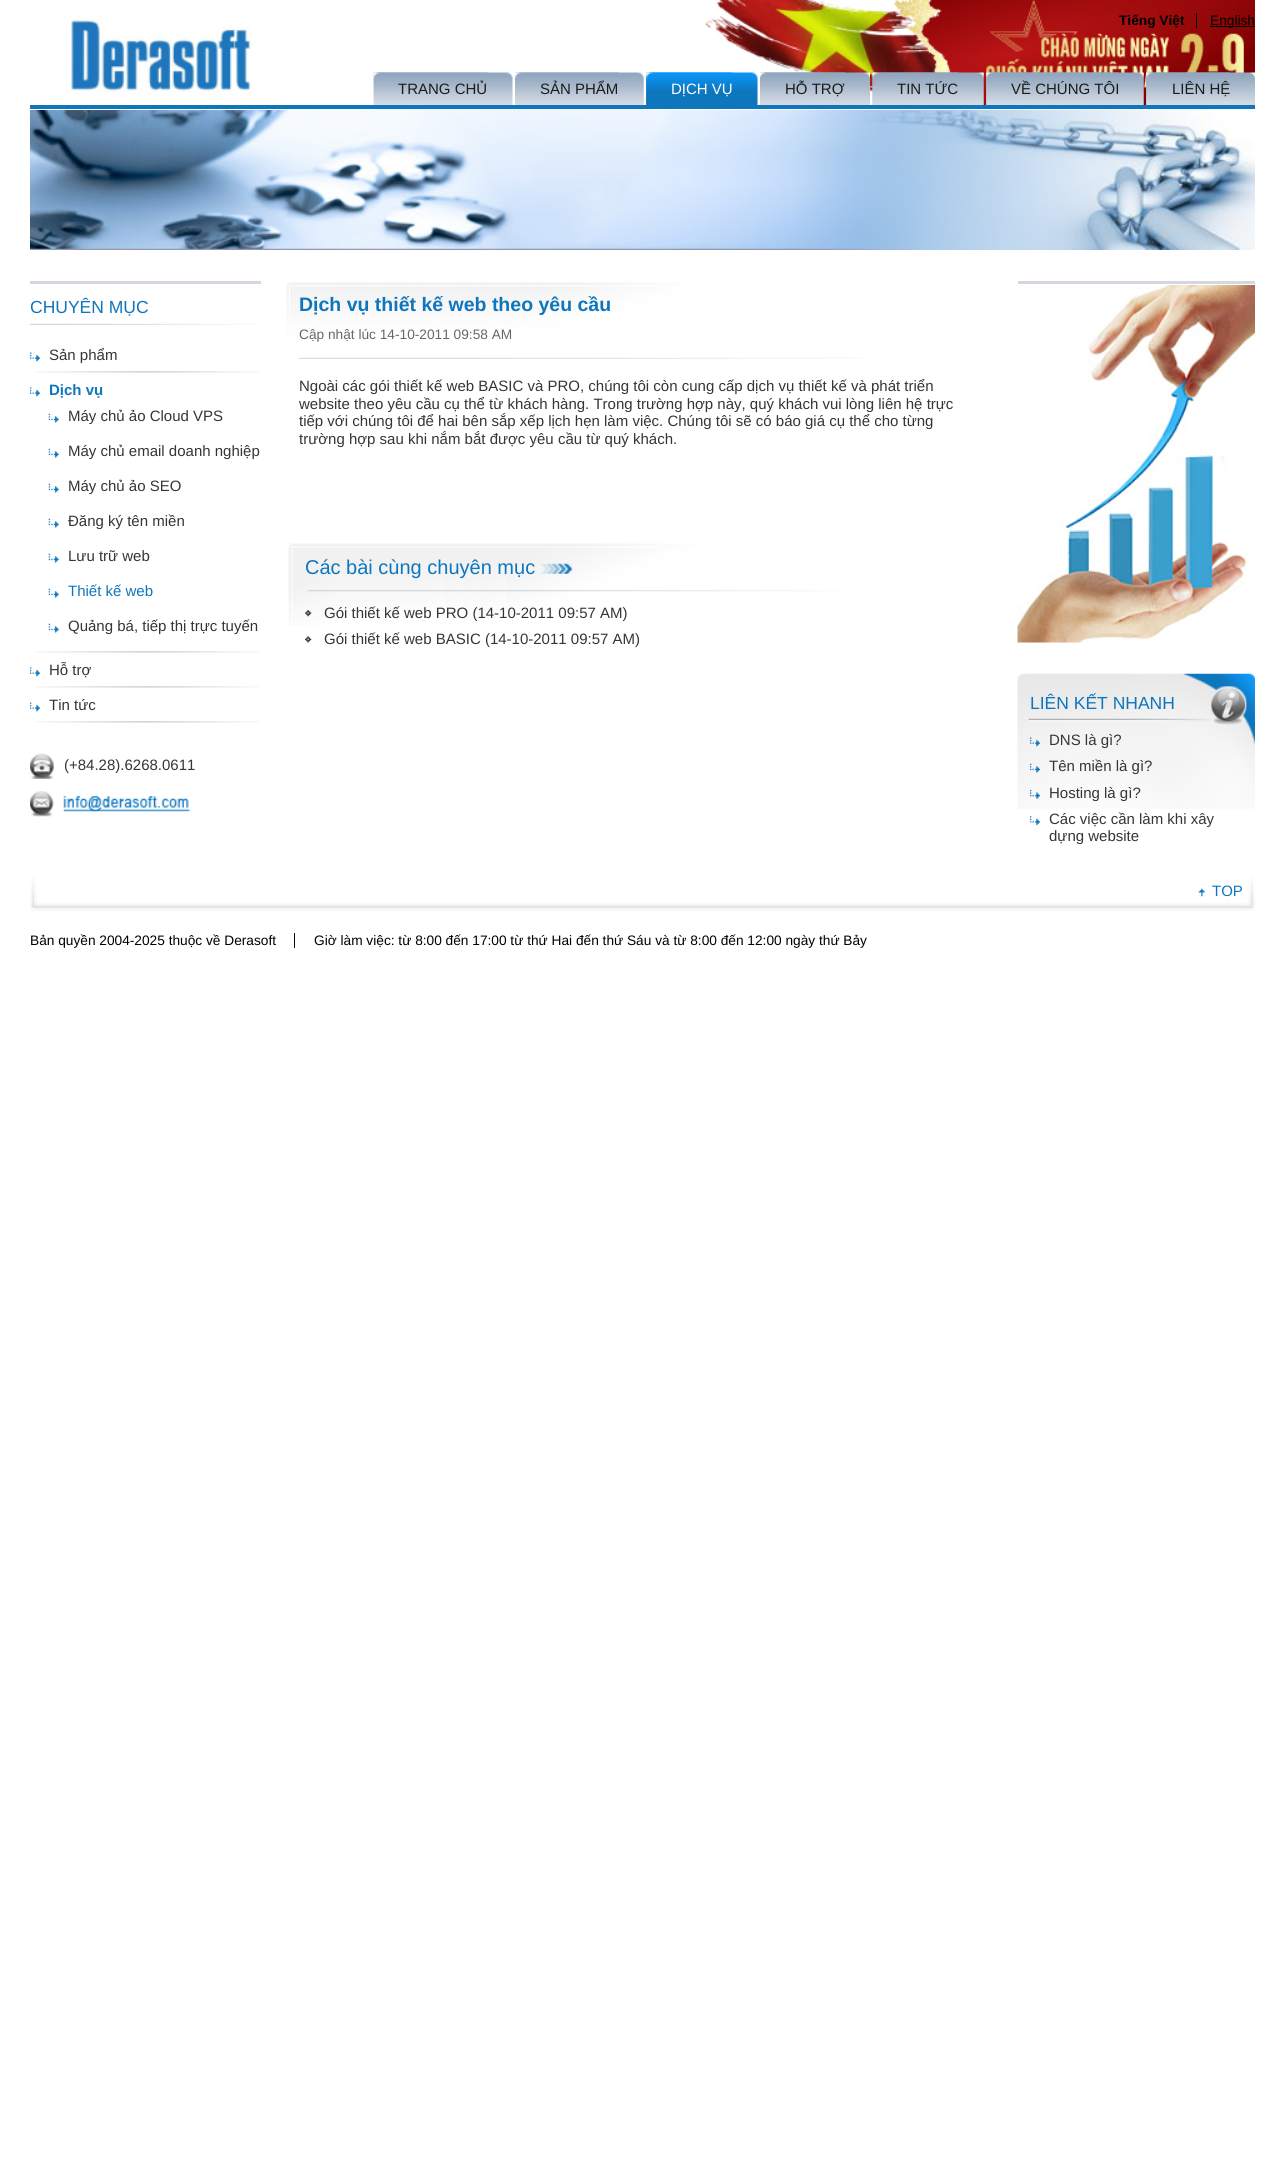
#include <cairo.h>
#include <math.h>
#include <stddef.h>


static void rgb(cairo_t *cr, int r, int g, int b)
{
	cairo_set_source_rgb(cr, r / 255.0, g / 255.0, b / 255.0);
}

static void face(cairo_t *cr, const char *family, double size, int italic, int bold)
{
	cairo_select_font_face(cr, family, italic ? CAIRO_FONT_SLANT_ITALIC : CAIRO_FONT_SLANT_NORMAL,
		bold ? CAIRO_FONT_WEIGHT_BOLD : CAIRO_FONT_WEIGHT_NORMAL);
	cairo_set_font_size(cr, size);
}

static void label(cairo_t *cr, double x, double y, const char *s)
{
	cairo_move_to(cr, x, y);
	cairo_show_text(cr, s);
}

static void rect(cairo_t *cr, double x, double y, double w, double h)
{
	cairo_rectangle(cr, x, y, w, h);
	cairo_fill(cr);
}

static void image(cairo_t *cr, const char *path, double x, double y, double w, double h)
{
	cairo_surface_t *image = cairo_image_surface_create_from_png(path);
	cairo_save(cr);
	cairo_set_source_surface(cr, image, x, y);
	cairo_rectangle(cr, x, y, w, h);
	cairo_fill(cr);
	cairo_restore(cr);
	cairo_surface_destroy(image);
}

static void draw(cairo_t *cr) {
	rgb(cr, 255, 255, 255);
	cairo_paint(cr);
	image(cr, "image0.png", 71, 0, 1184, 105);
	rgb(cr, 14, 118, 189);
	rect(cr, 30, 105, 1225, 4);
	face(cr, "Liberation Sans", 13.7, 0, 1);
	rgb(cr, 0, 0, 0);
	label(cr, 1119, 25, "Tiếng Việt");
	rect(cr, 1196, 13, 1, 15);
	rect(cr, 1210, 26, 45, 1);
	face(cr, "Liberation Sans", 13.7, 0, 0);
	label(cr, 1210, 25, "English");
	image(cr, "image1.png", 373, 72, 140, 33);
	image(cr, "image2.png", 373, 72, 115, 33);
	face(cr, "Liberation Sans", 15, 0, 0);
	rgb(cr, 27, 27, 27);
	label(cr, 398, 94, "TRANG CHỦ");
	image(cr, "image3.png", 515, 72, 129, 33);
	image(cr, "image4.png", 515, 72, 104, 7);
	label(cr, 540, 94, "SẢN PHẨM");
	image(cr, "image5.png", 646, 72, 112, 33);
	image(cr, "image6.png", 646, 72, 87, 33);
	rgb(cr, 255, 255, 255);
	label(cr, 671, 94, "DỊCH VỤ");
	image(cr, "image7.png", 760, 72, 110, 33);
	image(cr, "image8.png", 760, 72, 85, 7);
	rgb(cr, 27, 27, 27);
	label(cr, 785, 94, "HỖ TRỢ");
	image(cr, "image9.png", 872, 72, 112, 33);
	image(cr, "image10.png", 872, 72, 87, 33);
	label(cr, 897, 94, "TIN TỨC");
	image(cr, "image11.png", 986, 72, 158, 33);
	image(cr, "image12.png", 986, 72, 133, 33);
	label(cr, 1011, 94, "VỀ CHÚNG TÔI");
	image(cr, "image13.png", 1146, 72, 109, 33);
	image(cr, "image14.png", 1146, 72, 84, 33);
	label(cr, 1172, 94, "LIÊN HỆ");
	image(cr, "image15.png", 30, 110, 1225, 140);
	rgb(cr, 210, 215, 224);
	rect(cr, 30, 281, 231, 3);
	image(cr, "image16.png", 30, 323, 229, 2);
	face(cr, "Liberation Sans", 17.5, 0, 0);
	rgb(cr, 14, 118, 189);
	label(cr, 30, 313, "CHUYÊN MỤC");
	image(cr, "image17.png", 36, 371, 224, 2);
	image(cr, "image18.png", 30, 352, 10, 10);
	face(cr, "Liberation Sans", 15, 0, 0);
	rgb(cr, 53, 53, 53);
	label(cr, 49, 360, "Sản phẩm");
	image(cr, "image17.png", 36, 651, 224, 2);
	image(cr, "image18.png", 30, 387, 10, 10);
	face(cr, "Liberation Sans", 15, 0, 1);
	rgb(cr, 14, 118, 189);
	label(cr, 49, 395, "Dịch vụ");
	image(cr, "image19.png", 48, 413, 11, 10);
	face(cr, "Liberation Sans", 15, 0, 0);
	rgb(cr, 53, 53, 53);
	label(cr, 68, 421, "Máy chủ ảo Cloud VPS");
	image(cr, "image19.png", 48, 448, 11, 10);
	label(cr, 68, 456, "Máy chủ email doanh nghiệp");
	image(cr, "image19.png", 48, 483, 11, 10);
	label(cr, 68, 491, "Máy chủ ảo SEO");
	image(cr, "image19.png", 48, 518, 11, 10);
	label(cr, 68, 526, "Đăng ký tên miền");
	image(cr, "image19.png", 48, 553, 11, 10);
	label(cr, 68, 561, "Lưu trữ web");
	image(cr, "image19.png", 48, 588, 11, 10);
	rgb(cr, 14, 118, 189);
	label(cr, 68, 596, "Thiết kế web");
	image(cr, "image19.png", 48, 623, 11, 10);
	rgb(cr, 53, 53, 53);
	label(cr, 68, 631, "Quảng bá, tiếp thị trực tuyến");
	image(cr, "image17.png", 36, 686, 224, 2);
	image(cr, "image18.png", 30, 667, 10, 10);
	label(cr, 49, 675, "Hỗ trợ");
	image(cr, "image17.png", 36, 721, 224, 2);
	image(cr, "image18.png", 30, 702, 10, 10);
	label(cr, 49, 710, "Tin tức");
	image(cr, "image20.png", 30, 753, 24, 26);
	label(cr, 64, 770, "(+84.28).6268.0611");
	image(cr, "image21.png", 30, 791, 24, 26);
	image(cr, "image22.png", 63, 796, 128, 16);
	image(cr, "image23.png", 298, 357, 564, 2);
	image(cr, "image24.png", 286, 282, 503, 76);
	face(cr, "Liberation Sans", 19.5, 0, 1);
	rgb(cr, 14, 118, 189);
	label(cr, 299, 311, "Dịch vụ thiết kế web theo yêu cầu");
	face(cr, "Liberation Sans", 13.7, 0, 0);
	rgb(cr, 104, 104, 104);
	label(cr, 299, 339, "Cập nhật lúc 14-10-2011 09:58 AM");
	face(cr, "Liberation Sans", 15, 0, 0);
	rgb(cr, 53, 53, 53);
	label(cr, 299, 391, "Ngoài các gói thiết kế web BASIC và PRO, chúng tôi còn cung cấp dịch vụ thiết kế và phát triển");
	label(cr, 299, 409, "website theo yêu cầu cụ thể từ khách hàng. Trong trường hợp này, quý khách vui lòng liên hệ trực");
	label(cr, 299, 426, "tiếp với chúng tôi để hai bên sắp xếp lịch hẹn làm việc. Chúng tôi sẽ có báo giá cụ thể cho từng");
	label(cr, 299, 444, "trường hợp sau khi nắm bắt được yêu cầu từ quý khách.");
	image(cr, "image25.png", 288, 543, 549, 83);
	face(cr, "Liberation Sans", 20, 0, 0);
	rgb(cr, 14, 118, 189);
	label(cr, 305, 574, "Các bài cùng chuyên mục");
	image(cr, "image26.png", 541, 563, 32, 11);
	image(cr, "image27.png", 305, 610, 7, 7);
	face(cr, "Liberation Sans", 15, 0, 0);
	rgb(cr, 53, 53, 53);
	label(cr, 324, 618, "Gói thiết kế web PRO (14-10-2011 09:57 AM)");
	image(cr, "image28.png", 305, 636, 7, 7);
	label(cr, 324, 644, "Gói thiết kế web BASIC (14-10-2011 09:57 AM)");
	rgb(cr, 210, 215, 224);
	rect(cr, 1018, 281, 237, 3);
	image(cr, "image29.png", 1017, 285, 238, 358);
	image(cr, "image30.png", 1017, 673, 238, 136);
	face(cr, "Liberation Sans", 17.5, 0, 0);
	rgb(cr, 14, 118, 189);
	label(cr, 1030, 709, "LIÊN KẾT NHANH");
	image(cr, "image31.png", 1030, 737, 10, 10);
	face(cr, "Liberation Sans", 15, 0, 0);
	rgb(cr, 53, 53, 53);
	label(cr, 1049, 745, "DNS là gì?");
	image(cr, "image32.png", 1030, 763, 10, 10);
	label(cr, 1049, 771, "Tên miền là gì?");
	image(cr, "image33.png", 1030, 790, 10, 9);
	label(cr, 1049, 798, "Hosting là gì?");
	image(cr, "image34.png", 1030, 816, 10, 10);
	label(cr, 1049, 824, "Các việc cần làm khi xây");
	label(cr, 1049, 841, "dựng website");
	image(cr, "image35.png", 30, 877, 1225, 34);
	image(cr, "image36.png", 1198, 888, 7, 9);
	rgb(cr, 14, 118, 189);
	label(cr, 1212, 896, "TOP");
	face(cr, "Liberation Sans", 13.7, 0, 0);
	rgb(cr, 0, 0, 0);
	label(cr, 30, 945, "Bản quyền 2004-2025 thuộc về Derasoft");
	rgb(cr, 5, 5, 5);
	rect(cr, 294, 933, 1, 15);
	rgb(cr, 0, 0, 0);
	label(cr, 314, 945, "Giờ làm việc: từ 8:00 đến 17:00 từ thứ Hai đến thứ Sáu và từ 8:00 đến 12:00 ngày thứ Bảy");
}

int main(void) {
	cairo_surface_t *surface = cairo_image_surface_create(CAIRO_FORMAT_RGB24, 1285, 2161);
	cairo_t *cr = cairo_create(surface);
	cairo_font_options_t *options = cairo_font_options_create();
	cairo_font_options_set_hint_metrics(options, CAIRO_HINT_METRICS_OFF);
	cairo_font_options_set_hint_style(options, CAIRO_HINT_STYLE_NONE);
	cairo_set_font_options(cr, options);
	cairo_set_miter_limit(cr, 4);
	draw(cr);
	cairo_surface_write_to_png(surface, "render.png");
	cairo_font_options_destroy(options);
	cairo_destroy(cr);
	cairo_surface_destroy(surface);
	return 0;
}
